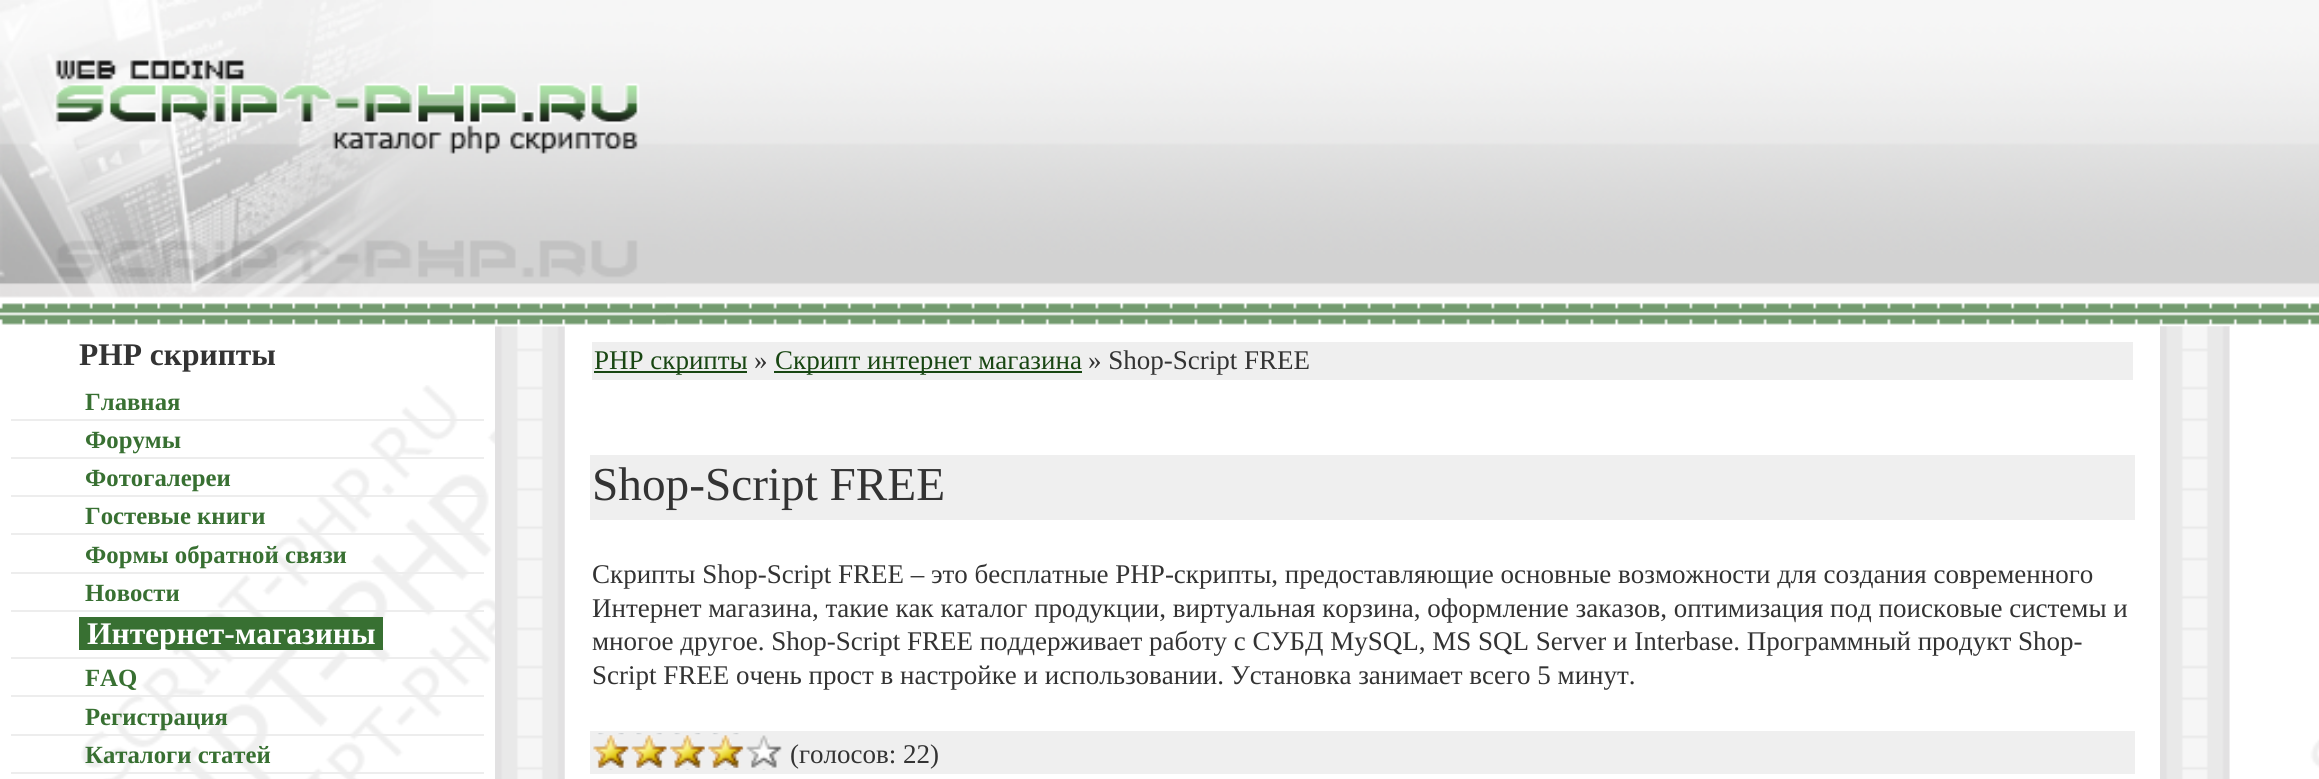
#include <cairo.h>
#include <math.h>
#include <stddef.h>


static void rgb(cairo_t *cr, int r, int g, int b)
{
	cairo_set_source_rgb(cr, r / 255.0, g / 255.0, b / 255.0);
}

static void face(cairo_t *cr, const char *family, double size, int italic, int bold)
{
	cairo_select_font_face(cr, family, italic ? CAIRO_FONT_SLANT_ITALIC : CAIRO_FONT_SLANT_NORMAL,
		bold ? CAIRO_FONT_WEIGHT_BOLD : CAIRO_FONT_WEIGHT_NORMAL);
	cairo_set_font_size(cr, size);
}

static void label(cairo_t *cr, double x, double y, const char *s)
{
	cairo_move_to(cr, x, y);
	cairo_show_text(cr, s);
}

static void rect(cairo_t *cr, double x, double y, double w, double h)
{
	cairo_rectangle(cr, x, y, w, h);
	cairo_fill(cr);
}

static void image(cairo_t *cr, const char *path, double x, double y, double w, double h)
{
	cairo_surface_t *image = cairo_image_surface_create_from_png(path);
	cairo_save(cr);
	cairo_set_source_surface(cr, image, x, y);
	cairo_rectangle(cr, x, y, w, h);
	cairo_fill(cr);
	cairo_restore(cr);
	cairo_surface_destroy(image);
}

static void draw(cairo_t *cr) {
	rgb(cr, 255, 255, 255);
	cairo_paint(cr);
	image(cr, "image3.png", 495, 326, 70, 453);
	image(cr, "image0.png", 0, 0, 666, 327);
	image(cr, "image1.png", 666, 0, 1653, 325);
	image(cr, "image2.png", 81, 385, 414, 394);
	face(cr, "Liberation Serif", 31.5, 0, 1);
	rgb(cr, 51, 51, 51);
	label(cr, 79, 365, "PHP скрипты");
	rgb(cr, 237, 237, 237);
	rect(cr, 11, 419, 473, 2);
	face(cr, "Liberation Serif", 24.75, 0, 1);
	rgb(cr, 56, 112, 50);
	label(cr, 85, 410, "Главная");
	rgb(cr, 237, 237, 237);
	rect(cr, 11, 457, 473, 2);
	rgb(cr, 56, 112, 50);
	label(cr, 85, 448, "Форумы");
	rgb(cr, 237, 237, 237);
	rect(cr, 11, 495, 473, 2);
	rgb(cr, 56, 112, 50);
	label(cr, 85, 486, "Фотогалереи");
	rgb(cr, 237, 237, 237);
	rect(cr, 11, 533, 473, 2);
	rgb(cr, 56, 112, 50);
	label(cr, 85, 524, "Гостевые книги");
	rgb(cr, 237, 237, 237);
	rect(cr, 11, 572, 473, 2);
	rgb(cr, 56, 112, 50);
	label(cr, 85, 563, "Формы обратной связи");
	rgb(cr, 237, 237, 237);
	rect(cr, 11, 610, 473, 2);
	rgb(cr, 56, 112, 50);
	label(cr, 85, 601, "Новости");
	rgb(cr, 237, 237, 237);
	rect(cr, 11, 657, 473, 2);
	rgb(cr, 56, 112, 50);
	rect(cr, 79, 617, 304, 33);
	face(cr, "Liberation Serif", 31.5, 0, 1);
	rgb(cr, 255, 255, 255);
	label(cr, 87, 644, "Интернет-магазины");
	rgb(cr, 237, 237, 237);
	rect(cr, 11, 695, 473, 2);
	face(cr, "Liberation Serif", 24.75, 0, 1);
	rgb(cr, 56, 112, 50);
	label(cr, 85, 686, "FAQ");
	rgb(cr, 237, 237, 237);
	rect(cr, 11, 734, 473, 2);
	rgb(cr, 56, 112, 50);
	label(cr, 85, 725, "Регистрация");
	rgb(cr, 237, 237, 237);
	rect(cr, 11, 772, 473, 2);
	rgb(cr, 56, 112, 50);
	label(cr, 85, 763, "Каталоги статей");
	rgb(cr, 239, 239, 239);
	rect(cr, 592, 342, 1541, 38);
	rgb(cr, 24, 70, 18);
	rect(cr, 594, 371, 153, 2);
	face(cr, "Liberation Serif", 27, 0, 0);
	label(cr, 594, 369, "PHP скрипты");
	rgb(cr, 51, 51, 51);
	label(cr, 754, 369, "»");
	rgb(cr, 24, 70, 18);
	rect(cr, 774, 371, 308, 2);
	label(cr, 775, 369, "Скрипт интернет магазина");
	rgb(cr, 51, 51, 51);
	label(cr, 1088, 369, "» Shop-Script FREE");
	rgb(cr, 239, 239, 239);
	rect(cr, 590, 455, 1545, 65);
	face(cr, "Liberation Serif", 47.25, 0, 0);
	rgb(cr, 51, 51, 51);
	label(cr, 592, 500, "Shop-Script FREE");
	face(cr, "Liberation Serif", 27, 0, 0);
	label(cr, 592, 583, "Скрипты Shop-Script FREE – это бесплатные PHP-скрипты, предоставляющие основные возможности для создания современного");
	label(cr, 592, 617, "Интернет магазина, такие как каталог продукции, виртуальная корзина, оформление заказов, оптимизация под поисковые системы и");
	label(cr, 592, 650, "многое другое. Shop-Script FREE поддерживает работу с СУБД MySQL, MS SQL Server и Interbase. Программный продукт Shop-");
	label(cr, 592, 684, "Script FREE очень прост в настройке и использовании. Установка занимает всего 5 минут.");
	rgb(cr, 239, 239, 239);
	rect(cr, 590, 731, 1545, 43);
	image(cr, "image4.png", 593, 735, 189, 35);
	image(cr, "image5.png", 593, 733, 151, 35);
	rgb(cr, 51, 51, 51);
	label(cr, 790, 763, "(голосов: 22)");
	image(cr, "image3.png", 2160, 326, 70, 453);
	image(cr, "image6.png", 2229, 327, 90, 452);
}

int main(void) {
	cairo_surface_t *surface = cairo_image_surface_create(CAIRO_FORMAT_RGB24, 2319, 779);
	cairo_t *cr = cairo_create(surface);
	cairo_font_options_t *options = cairo_font_options_create();
	cairo_font_options_set_hint_metrics(options, CAIRO_HINT_METRICS_OFF);
	cairo_font_options_set_hint_style(options, CAIRO_HINT_STYLE_NONE);
	cairo_set_font_options(cr, options);
	cairo_set_miter_limit(cr, 4);
	draw(cr);
	cairo_surface_write_to_png(surface, "render.png");
	cairo_font_options_destroy(options);
	cairo_destroy(cr);
	cairo_surface_destroy(surface);
	return 0;
}
